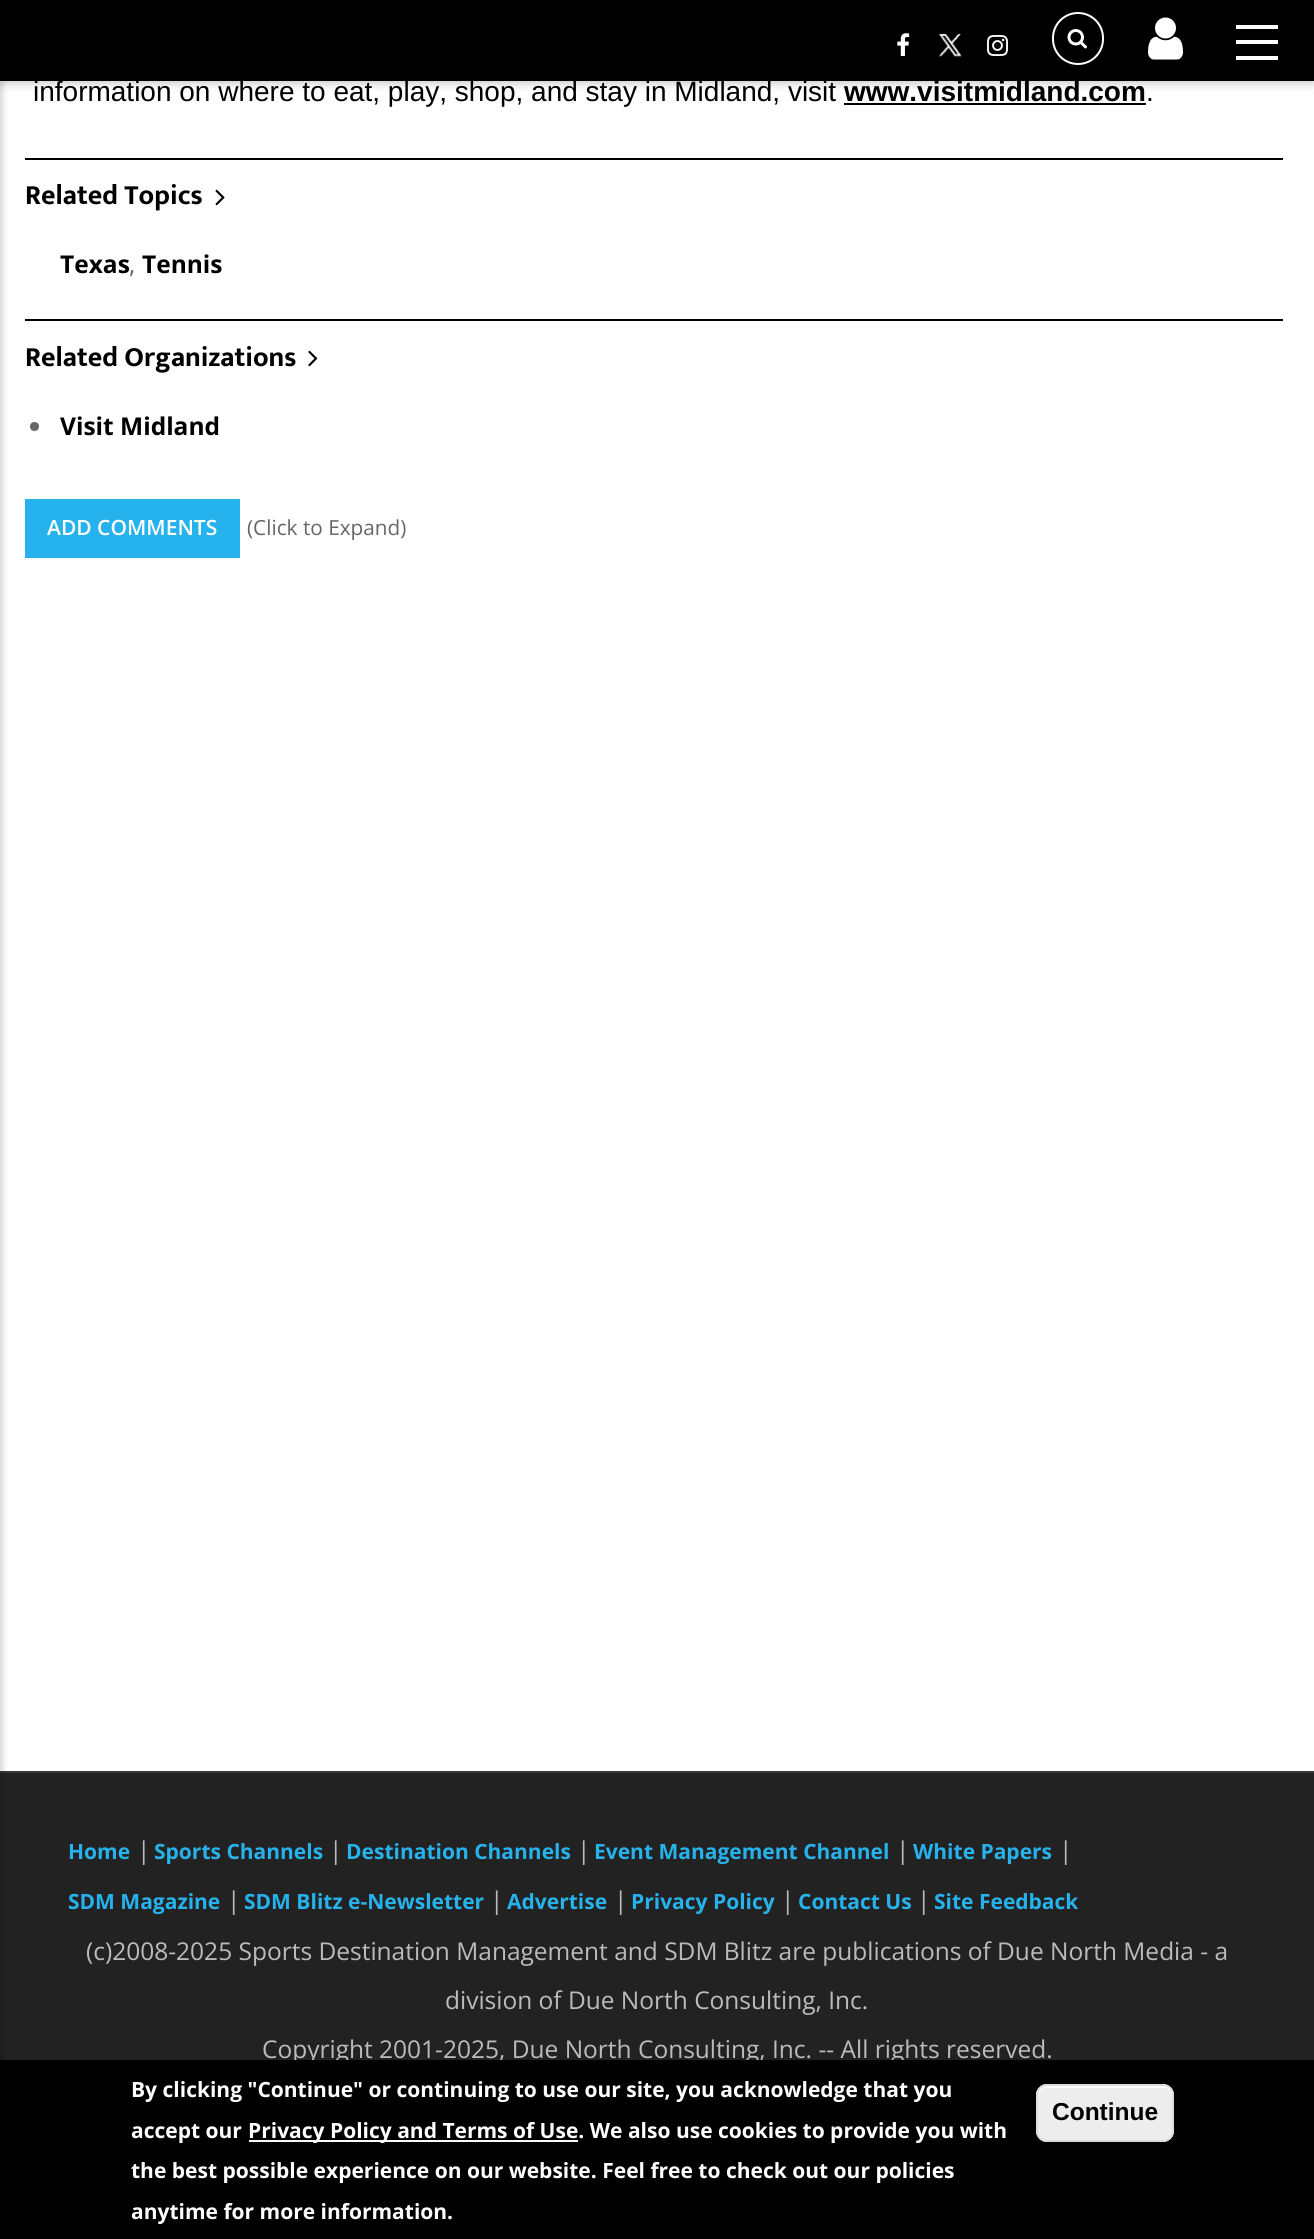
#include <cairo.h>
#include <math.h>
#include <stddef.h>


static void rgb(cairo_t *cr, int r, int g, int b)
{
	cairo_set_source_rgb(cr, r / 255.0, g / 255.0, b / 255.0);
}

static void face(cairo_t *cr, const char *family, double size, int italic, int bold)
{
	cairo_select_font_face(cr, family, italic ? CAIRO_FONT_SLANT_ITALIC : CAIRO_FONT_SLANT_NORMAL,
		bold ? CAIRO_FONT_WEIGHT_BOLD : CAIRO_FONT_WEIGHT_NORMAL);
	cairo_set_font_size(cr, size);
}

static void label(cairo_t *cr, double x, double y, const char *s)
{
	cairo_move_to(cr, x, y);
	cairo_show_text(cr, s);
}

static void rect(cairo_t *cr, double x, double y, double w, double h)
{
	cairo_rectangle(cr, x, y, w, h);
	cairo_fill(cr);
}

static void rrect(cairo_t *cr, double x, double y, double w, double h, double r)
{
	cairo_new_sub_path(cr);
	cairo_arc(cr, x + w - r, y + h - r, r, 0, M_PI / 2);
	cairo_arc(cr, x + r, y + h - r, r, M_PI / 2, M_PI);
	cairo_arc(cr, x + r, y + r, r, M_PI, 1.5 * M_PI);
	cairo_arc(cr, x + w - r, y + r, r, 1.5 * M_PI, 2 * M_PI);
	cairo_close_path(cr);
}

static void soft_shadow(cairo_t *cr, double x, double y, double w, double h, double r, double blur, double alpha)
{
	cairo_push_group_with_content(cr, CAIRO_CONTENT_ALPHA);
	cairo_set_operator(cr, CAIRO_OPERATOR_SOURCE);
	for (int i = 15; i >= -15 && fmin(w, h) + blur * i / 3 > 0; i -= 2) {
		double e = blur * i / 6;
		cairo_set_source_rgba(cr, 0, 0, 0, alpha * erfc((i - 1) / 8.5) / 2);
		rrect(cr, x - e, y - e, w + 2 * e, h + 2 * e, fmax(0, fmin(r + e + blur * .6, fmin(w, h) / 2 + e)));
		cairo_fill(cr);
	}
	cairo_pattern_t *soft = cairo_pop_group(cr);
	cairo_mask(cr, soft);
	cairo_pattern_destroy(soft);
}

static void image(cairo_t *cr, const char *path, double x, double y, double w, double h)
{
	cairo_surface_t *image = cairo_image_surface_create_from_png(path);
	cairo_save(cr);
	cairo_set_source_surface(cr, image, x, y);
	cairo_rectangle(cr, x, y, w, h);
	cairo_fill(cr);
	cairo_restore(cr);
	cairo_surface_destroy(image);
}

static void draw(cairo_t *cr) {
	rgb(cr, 255, 255, 255);
	cairo_paint(cr);
	rgb(cr, 0, 0, 0);
	soft_shadow(cr, 0, 4, 1314, 80, 0, 4.5, 0.2);
	rgb(cr, 0, 0, 0);
	rect(cr, 0, 0, 1314, 81);
	rgb(cr, 34, 34, 34);
	rect(cr, 0, 1773, 1314, 287);
	rgb(cr, 56, 56, 56);
	rect(cr, 0, 1771, 1314, 2);
	rgb(cr, 0, 0, 0);
	soft_shadow(cr, -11, 5, 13, 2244, 0, 3.5, 0.2);
	image(cr, "image0.png", 897, 33, 13, 23);
	image(cr, "image1.png", 938, 33, 24, 24);
	image(cr, "image2.png", 987, 35, 21, 21);
	rrect(cr, 1053, 13, 50, 51, 25);
	rgb(cr, 255, 255, 255);
	cairo_stroke(cr);
	image(cr, "image3.png", 1067, 29, 20, 20);
	image(cr, "image4.png", 1148, 17, 35, 43);
	rect(cr, 1236, 25, 42, 4);
	rect(cr, 1236, 40, 42, 4);
	rect(cr, 1236, 56, 42, 4);
	face(cr, "Liberation Sans", 28, 0, 0);
	rgb(cr, 0, 0, 0);
	label(cr, 33, 101, "information on where to eat, play, shop, and stay in Midland, visit");
	face(cr, "Liberation Sans", 28, 0, 1);
	label(cr, 844, 101, "www.visitmidland.com");
	face(cr, "Liberation Sans", 28, 0, 0);
	label(cr, 1146, 101, ".");
	rect(cr, 844, 103, 302, 2);
	rect(cr, 25, 158, 1258, 2);
	face(cr, "Mukta Vaani", 28, 0, 1);
	label(cr, 25, 204, "Related Topics");
	image(cr, "image5.png", 215, 189, 10, 17);
	face(cr, "Open Sans", 24.5, 0, 1);
	label(cr, 60, 273, "Texas");
	face(cr, "Open Sans", 24.5, 0, 0);
	rgb(cr, 102, 102, 102);
	label(cr, 129, 273, ",");
	face(cr, "Open Sans", 24.5, 0, 1);
	rgb(cr, 0, 0, 0);
	label(cr, 142, 273, "Tennis");
	rect(cr, 25, 319, 1258, 2);
	face(cr, "Mukta Vaani", 28, 0, 1);
	label(cr, 25, 366, "Related Organizations");
	image(cr, "image6.png", 308, 350, 10, 17);
	rgb(cr, 102, 102, 102);
	cairo_arc(cr, 34.5, 426.5, 4.5, 0, 2 * M_PI);
	cairo_fill(cr);
	face(cr, "Open Sans", 24.5, 0, 1);
	rgb(cr, 0, 0, 0);
	label(cr, 60, 435, "Visit Midland");
	rgb(cr, 38, 178, 236);
	rect(cr, 25, 499, 215, 59);
	face(cr, "Open Sans SemiBold", 21, 0, 0);
	rgb(cr, 255, 255, 255);
	label(cr, 47, 535, "ADD COMMENTS");
	face(cr, "Open Sans", 20.75, 0, 0);
	rgb(cr, 102, 102, 102);
	label(cr, 247, 535, "(Click to Expand)");
	face(cr, "Open Sans", 21, 0, 1);
	rgb(cr, 38, 178, 236);
	label(cr, 68, 1859, "Home");
	face(cr, "Open Sans", 24.5, 0, 0);
	rgb(cr, 187, 187, 187);
	label(cr, 137, 1859, "|");
	face(cr, "Open Sans", 21, 0, 1);
	rgb(cr, 38, 178, 236);
	label(cr, 154, 1859, "Sports Channels");
	face(cr, "Open Sans", 24.5, 0, 0);
	rgb(cr, 187, 187, 187);
	label(cr, 329, 1859, "|");
	face(cr, "Open Sans", 21, 0, 1);
	rgb(cr, 38, 178, 236);
	label(cr, 346, 1859, "Destination Channels");
	face(cr, "Open Sans", 24.5, 0, 0);
	rgb(cr, 187, 187, 187);
	label(cr, 577, 1859, "|");
	face(cr, "Open Sans", 21, 0, 1);
	rgb(cr, 38, 178, 236);
	label(cr, 594, 1859, "Event Management Channel");
	face(cr, "Open Sans", 24.5, 0, 0);
	rgb(cr, 187, 187, 187);
	label(cr, 896, 1859, "|");
	face(cr, "Open Sans", 21, 0, 1);
	rgb(cr, 38, 178, 236);
	label(cr, 913, 1859, "White Papers");
	face(cr, "Open Sans", 24.5, 0, 0);
	rgb(cr, 187, 187, 187);
	label(cr, 1059, 1859, "|");
	face(cr, "Open Sans", 21, 0, 1);
	rgb(cr, 38, 178, 236);
	label(cr, 68, 1909, "SDM Magazine");
	face(cr, "Open Sans", 24.5, 0, 0);
	rgb(cr, 187, 187, 187);
	label(cr, 227, 1909, "|");
	face(cr, "Open Sans", 21, 0, 1);
	rgb(cr, 38, 178, 236);
	label(cr, 244, 1909, "SDM Blitz e-Newsletter");
	face(cr, "Open Sans", 24.5, 0, 0);
	rgb(cr, 187, 187, 187);
	label(cr, 490, 1909, "|");
	face(cr, "Open Sans", 21, 0, 1);
	rgb(cr, 38, 178, 236);
	label(cr, 507, 1909, "Advertise");
	face(cr, "Open Sans", 24.5, 0, 0);
	rgb(cr, 187, 187, 187);
	label(cr, 614, 1909, "|");
	face(cr, "Open Sans", 21, 0, 1);
	rgb(cr, 38, 178, 236);
	label(cr, 631, 1909, "Privacy Policy");
	face(cr, "Open Sans", 24.5, 0, 0);
	rgb(cr, 187, 187, 187);
	label(cr, 781, 1909, "|");
	face(cr, "Open Sans", 21, 0, 1);
	rgb(cr, 38, 178, 236);
	label(cr, 798, 1909, "Contact Us");
	face(cr, "Open Sans", 24.5, 0, 0);
	rgb(cr, 187, 187, 187);
	label(cr, 917, 1909, "|");
	face(cr, "Open Sans", 21, 0, 1);
	rgb(cr, 38, 178, 236);
	label(cr, 934, 1909, "Site Feedback");
	face(cr, "Open Sans", 24.5, 0, 0);
	rgb(cr, 187, 187, 187);
	label(cr, 86, 1960, "(c)2008-2025 Sports Destination Management and SDM Blitz are publications of Due North Media - a");
	label(cr, 445, 2009, "division of Due North Consulting, Inc.");
	label(cr, 262, 2058, "Copyright 2001-2025, Due North Consulting, Inc. -- All rights reserved.");
	rgb(cr, 0, 0, 0);
	rect(cr, 0, 2060, 1314, 179);
	face(cr, "Open Sans", 21, 0, 1);
	rgb(cr, 255, 255, 255);
	label(cr, 131, 2097, "By clicking \"Continue\" or continuing to use our site, you acknowledge that you");
	label(cr, 131, 2138, "accept our");
	rect(cr, 249, 2140, 329, 2);
	label(cr, 248, 2138, "Privacy Policy and Terms of Use. We also use cookies to provide you with");
	label(cr, 131, 2178, "the best possible experience on our website. Feel free to check out our policies");
	label(cr, 131, 2219, "anytime for more information.");
	rgb(cr, 237, 237, 237);
	rrect(cr, 1036, 2084, 138, 58, 11);
	cairo_fill(cr);
	rgb(cr, 255, 255, 255);
	cairo_new_path(cr);
	cairo_move_to(cr, 1046, 2088);
	cairo_line_to(cr, 1164, 2088);
	cairo_curve_to(cr, 1175, 2088, 1172, 2102, 1172, 2108);
	cairo_line_to(cr, 1172, 2136);
	cairo_curve_to(cr, 1173, 2134, 1173, 2133, 1173, 2131);
	cairo_line_to(cr, 1173, 2095);
	cairo_curve_to(cr, 1173, 2090, 1169, 2086, 1164, 2086);
	cairo_line_to(cr, 1047, 2086);
	cairo_curve_to(cr, 1042, 2086, 1038, 2090, 1038, 2095);
	cairo_line_to(cr, 1038, 2096);
	cairo_curve_to(cr, 1038, 2092, 1042, 2088, 1046, 2088);
	cairo_close_path(cr);
	cairo_fill(cr);
	rrect(cr, 1037, 2085, 136, 56, 10);
	rgb(cr, 220, 220, 220);
	cairo_stroke(cr);
	face(cr, "Liberation Sans", 24.5, 0, 1);
	rgb(cr, 0, 0, 0);
	label(cr, 1052, 2120, "Continue");
}

int main(void) {
	cairo_surface_t *surface = cairo_image_surface_create(CAIRO_FORMAT_RGB24, 1314, 2239);
	cairo_t *cr = cairo_create(surface);
	cairo_font_options_t *options = cairo_font_options_create();
	cairo_font_options_set_hint_metrics(options, CAIRO_HINT_METRICS_OFF);
	cairo_font_options_set_hint_style(options, CAIRO_HINT_STYLE_NONE);
	cairo_set_font_options(cr, options);
	cairo_set_miter_limit(cr, 4);
	draw(cr);
	cairo_surface_write_to_png(surface, "render.png");
	cairo_font_options_destroy(options);
	cairo_destroy(cr);
	cairo_surface_destroy(surface);
	return 0;
}
